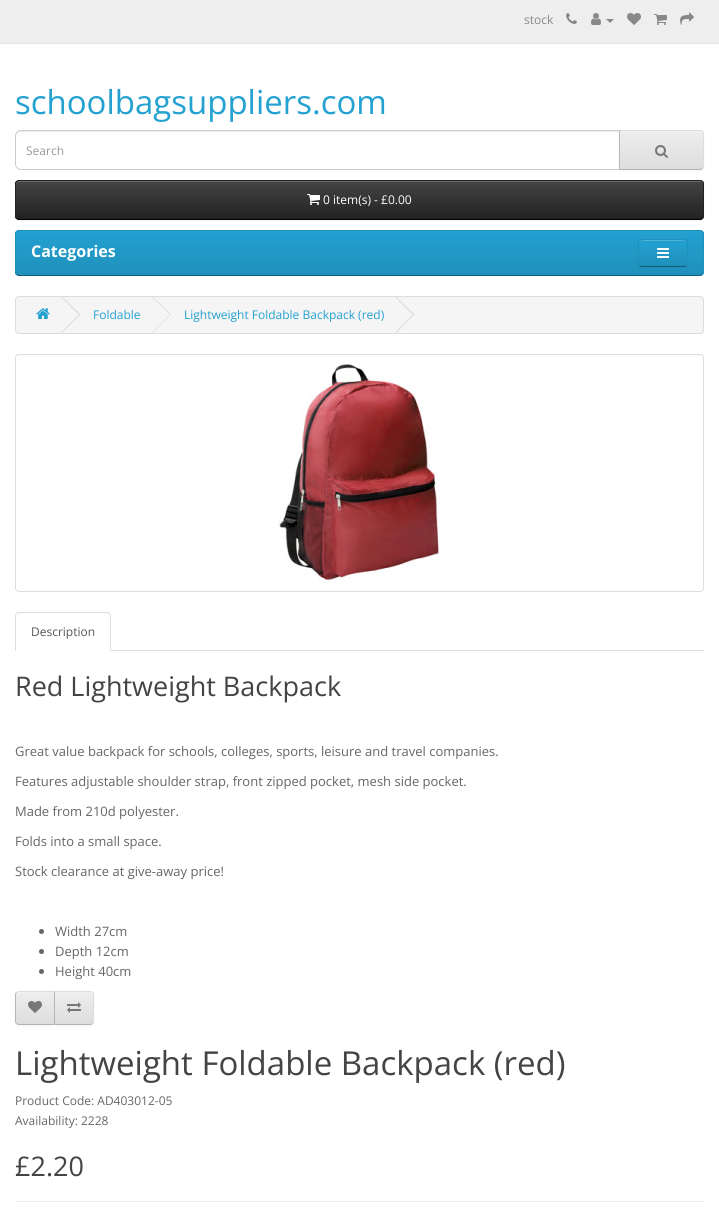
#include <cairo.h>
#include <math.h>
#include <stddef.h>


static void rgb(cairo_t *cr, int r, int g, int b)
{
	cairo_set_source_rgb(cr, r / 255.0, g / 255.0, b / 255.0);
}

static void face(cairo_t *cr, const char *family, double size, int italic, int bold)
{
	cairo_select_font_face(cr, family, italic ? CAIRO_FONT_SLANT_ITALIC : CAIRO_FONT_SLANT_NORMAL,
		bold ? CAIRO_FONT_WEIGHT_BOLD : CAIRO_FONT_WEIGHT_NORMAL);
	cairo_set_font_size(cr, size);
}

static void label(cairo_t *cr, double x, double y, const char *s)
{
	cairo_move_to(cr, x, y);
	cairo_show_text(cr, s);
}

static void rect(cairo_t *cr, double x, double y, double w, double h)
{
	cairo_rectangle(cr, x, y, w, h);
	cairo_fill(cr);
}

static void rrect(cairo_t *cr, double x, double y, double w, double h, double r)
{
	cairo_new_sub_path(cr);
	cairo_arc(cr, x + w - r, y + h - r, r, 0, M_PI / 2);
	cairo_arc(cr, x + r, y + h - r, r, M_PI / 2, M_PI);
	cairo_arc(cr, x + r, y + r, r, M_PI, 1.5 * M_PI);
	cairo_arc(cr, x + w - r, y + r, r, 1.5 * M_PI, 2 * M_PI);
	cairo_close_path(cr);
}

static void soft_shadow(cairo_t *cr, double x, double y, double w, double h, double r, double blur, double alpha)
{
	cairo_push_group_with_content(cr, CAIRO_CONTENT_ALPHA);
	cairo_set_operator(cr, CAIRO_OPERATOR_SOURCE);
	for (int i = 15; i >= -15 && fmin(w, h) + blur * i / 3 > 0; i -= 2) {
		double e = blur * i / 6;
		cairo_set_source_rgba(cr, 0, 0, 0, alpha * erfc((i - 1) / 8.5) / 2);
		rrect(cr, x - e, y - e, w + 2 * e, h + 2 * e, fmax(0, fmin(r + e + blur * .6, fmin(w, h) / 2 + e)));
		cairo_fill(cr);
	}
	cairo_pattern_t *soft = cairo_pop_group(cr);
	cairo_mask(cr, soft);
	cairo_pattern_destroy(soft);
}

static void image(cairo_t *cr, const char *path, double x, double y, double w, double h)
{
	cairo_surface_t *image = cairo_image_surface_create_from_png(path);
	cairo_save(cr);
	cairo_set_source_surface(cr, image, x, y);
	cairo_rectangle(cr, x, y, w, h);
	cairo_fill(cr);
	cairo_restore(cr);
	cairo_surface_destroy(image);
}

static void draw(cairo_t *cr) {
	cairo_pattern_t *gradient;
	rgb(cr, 255, 255, 255);
	cairo_paint(cr);
	rgb(cr, 238, 238, 238);
	rect(cr, 0, 0, 719, 43);
	rgb(cr, 226, 226, 226);
	rect(cr, 0, 43, 719, 1);
	face(cr, "Open Sans", 12, 0, 0);
	rgb(cr, 136, 136, 136);
	label(cr, 524, 24, "stock");
	image(cr, "image0.png", 566, 13, 11, 11);
	image(cr, "image1.png", 591, 13, 10, 12);
	cairo_new_path(cr);
	cairo_move_to(cr, 606, 19);
	cairo_line_to(cr, 614, 19);
	cairo_line_to(cr, 610, 23);
	cairo_close_path(cr);
	cairo_fill(cr);
	image(cr, "image2.png", 627, 13, 14, 12);
	image(cr, "image3.png", 654, 14, 13, 11);
	image(cr, "image4.png", 680, 12, 14, 13);
	face(cr, "Open Sans", 33, 0, 0);
	rgb(cr, 35, 161, 209);
	label(cr, 15, 114, "schoolbagsuppliers.com");
	rgb(cr, 236, 236, 236);
	cairo_new_path(cr);
	cairo_move_to(cr, 21, 132);
	cairo_line_to(cr, 619, 132);
	cairo_line_to(cr, 619, 131);
	cairo_line_to(cr, 21, 131);
	cairo_curve_to(cr, 18, 131, 16, 134, 16, 137);
	cairo_curve_to(cr, 16, 134, 18, 132, 21, 132);
	cairo_close_path(cr);
	cairo_fill(cr);
	cairo_new_path(cr);
	cairo_move_to(cr, 21, 130.5);
	cairo_line_to(cr, 619.5, 130.5);
	cairo_line_to(cr, 619.5, 169.5);
	cairo_line_to(cr, 21, 169.5);
	cairo_curve_to(cr, 18, 169.5, 15.5, 167, 15.5, 164);
	cairo_line_to(cr, 15.5, 136);
	cairo_curve_to(cr, 15.5, 133, 18, 130.5, 21, 130.5);
	cairo_close_path(cr);
	rgb(cr, 204, 204, 204);
	cairo_set_line_width(cr, 1);
	cairo_stroke(cr);
	face(cr, "Open Sans", 12, 0, 0);
	rgb(cr, 153, 153, 153);
	label(cr, 26, 155, "Search");
	rgb(cr, 0, 0, 0);
	soft_shadow(cr, 619, 131, 85, 40, 4, 1, 0.05);
	rgb(cr, 231, 231, 231);
	cairo_new_path(cr);
	cairo_move_to(cr, 619, 130);
	cairo_line_to(cr, 700, 130);
	cairo_curve_to(cr, 702, 130, 704, 132, 704, 134);
	cairo_line_to(cr, 704, 166);
	cairo_curve_to(cr, 704, 168, 702, 170, 700, 170);
	cairo_line_to(cr, 619, 170);
	cairo_close_path(cr);
	cairo_fill(cr);
	cairo_save(cr);
	cairo_new_path(cr);
	cairo_move_to(cr, 619, 130);
	cairo_line_to(cr, 700, 130);
	cairo_curve_to(cr, 702, 130, 704, 132, 704, 134);
	cairo_line_to(cr, 704, 166);
	cairo_curve_to(cr, 704, 168, 702, 170, 700, 170);
	cairo_line_to(cr, 619, 170);
	cairo_close_path(cr);
	cairo_clip(cr);
	gradient = cairo_pattern_create_linear(662, 131, 662, 169);
	cairo_pattern_add_color_stop_rgba(gradient, 0, 0.933, 0.933, 0.933, 1);
	cairo_pattern_add_color_stop_rgba(gradient, 1, 0.867, 0.867, 0.867, 1);
	cairo_set_source(cr, gradient);
	cairo_pattern_destroy(gradient);
	rect(cr, 620, 131, 84, 38);
	cairo_restore(cr);
	rgb(cr, 241, 241, 241);
	cairo_new_path(cr);
	cairo_move_to(cr, 620, 132);
	cairo_line_to(cr, 700, 132);
	cairo_curve_to(cr, 702, 132, 703, 133, 703, 135);
	cairo_line_to(cr, 703, 134);
	cairo_curve_to(cr, 703, 132, 702, 131, 700, 131);
	cairo_line_to(cr, 620, 131);
	cairo_close_path(cr);
	cairo_fill(cr);
	rgb(cr, 221, 221, 221);
	cairo_new_path(cr);
	cairo_move_to(cr, 619, 130);
	cairo_line_to(cr, 620, 131);
	cairo_line_to(cr, 701, 131);
	cairo_line_to(cr, 702, 132);
	cairo_line_to(cr, 703, 131);
	cairo_line_to(cr, 700, 130);
	cairo_close_path(cr);
	cairo_fill(cr);
	cairo_new_path(cr);
	cairo_move_to(cr, 704, 166);
	cairo_line_to(cr, 704, 134);
	cairo_curve_to(cr, 704, 133, 703.5, 132, 703, 131);
	cairo_line_to(cr, 702, 132);
	cairo_curve_to(cr, 703, 132, 703, 133, 703, 134);
	cairo_line_to(cr, 703, 166);
	cairo_curve_to(cr, 703, 167, 703, 168, 702, 168);
	cairo_line_to(cr, 703, 169);
	cairo_curve_to(cr, 703.5, 168, 704, 167, 704, 166);
	cairo_close_path(cr);
	cairo_fill(cr);
	rgb(cr, 179, 179, 179);
	cairo_new_path(cr);
	cairo_move_to(cr, 700, 170);
	cairo_line_to(cr, 703, 169);
	cairo_line_to(cr, 702, 168);
	cairo_line_to(cr, 701, 169);
	cairo_line_to(cr, 620, 169);
	cairo_line_to(cr, 619, 170);
	cairo_close_path(cr);
	cairo_fill(cr);
	rgb(cr, 183, 183, 183);
	cairo_new_path(cr);
	cairo_move_to(cr, 619, 130);
	cairo_line_to(cr, 619, 170);
	cairo_line_to(cr, 620, 169);
	cairo_line_to(cr, 620, 131);
	cairo_close_path(cr);
	cairo_fill(cr);
	image(cr, "image5.png", 655, 145, 13, 13);
	rgb(cr, 0, 0, 0);
	soft_shadow(cr, 15, 181, 689, 40, 4, 1, 0.05);
	rgb(cr, 54, 54, 54);
	rrect(cr, 15, 180, 689, 40, 4);
	cairo_fill(cr);
	cairo_save(cr);
	rrect(cr, 15, 180, 689, 40, 4);
	cairo_clip(cr);
	gradient = cairo_pattern_create_linear(360, 181, 360, 219);
	cairo_pattern_add_color_stop_rgba(gradient, 0, 0.267, 0.267, 0.267, 1);
	cairo_pattern_add_color_stop_rgba(gradient, 1, 0.133, 0.133, 0.133, 1);
	cairo_set_source(cr, gradient);
	cairo_pattern_destroy(gradient);
	rect(cr, 15, 181, 689, 38);
	cairo_restore(cr);
	rgb(cr, 105, 105, 105);
	cairo_new_path(cr);
	cairo_move_to(cr, 19, 182);
	cairo_line_to(cr, 700, 182);
	cairo_curve_to(cr, 702, 182, 703, 183, 703, 185);
	cairo_line_to(cr, 703, 184);
	cairo_curve_to(cr, 703, 182, 702, 181, 700, 181);
	cairo_line_to(cr, 19, 181);
	cairo_curve_to(cr, 17, 181, 16, 182, 16, 184);
	cairo_line_to(cr, 16, 185);
	cairo_curve_to(cr, 16, 183, 17, 182, 19, 182);
	cairo_close_path(cr);
	cairo_fill(cr);
	cairo_new_path(cr);
	cairo_move_to(cr, 702.5, 218.5);
	cairo_line_to(cr, 700, 219.5);
	cairo_line_to(cr, 19, 219.5);
	cairo_line_to(cr, 16.5, 218.5);
	rgb(cr, 0, 0, 0);
	cairo_stroke(cr);
	cairo_new_path(cr);
	cairo_move_to(cr, 16.5, 218.5);
	cairo_line_to(cr, 15.5, 216.5);
	cairo_line_to(cr, 15.5, 183);
	cairo_curve_to(cr, 16, 182, 17, 181, 18.5, 180.5);
	cairo_line_to(cr, 700.5, 180.5);
	cairo_curve_to(cr, 702, 181, 703, 182, 703.5, 183);
	cairo_line_to(cr, 703.5, 216.5);
	cairo_line_to(cr, 702.5, 218.5);
	rgb(cr, 34, 34, 34);
	cairo_stroke(cr);
	image(cr, "image6.png", 307, 194, 13, 11);
	rgb(cr, 255, 255, 255);
	label(cr, 323, 204, "0 item(s) - £0.00");
	rgb(cr, 34, 154, 200);
	rrect(cr, 15, 230, 689, 46, 4);
	cairo_fill(cr);
	cairo_save(cr);
	rrect(cr, 15, 230, 689, 46, 4);
	cairo_clip(cr);
	gradient = cairo_pattern_create_linear(360, 231, 360, 275);
	cairo_pattern_add_color_stop_rgba(gradient, 0, 0.137, 0.631, 0.82, 1);
	cairo_pattern_add_color_stop_rgba(gradient, 1, 0.122, 0.565, 0.733, 1);
	cairo_set_source(cr, gradient);
	cairo_pattern_destroy(gradient);
	rect(cr, 15, 231, 689, 44);
	cairo_restore(cr);
	cairo_new_path(cr);
	cairo_move_to(cr, 702.5, 274.5);
	cairo_line_to(cr, 700, 275.5);
	cairo_line_to(cr, 19, 275.5);
	cairo_line_to(cr, 16.5, 274.5);
	rgb(cr, 20, 94, 122);
	cairo_stroke(cr);
	cairo_new_path(cr);
	cairo_move_to(cr, 16.5, 274.5);
	cairo_line_to(cr, 15.5, 272.5);
	cairo_line_to(cr, 15.5, 233.5);
	cairo_curve_to(cr, 16, 231.5, 17.5, 230.5, 19, 230.5);
	cairo_line_to(cr, 700, 230.5);
	cairo_curve_to(cr, 701.5, 230.5, 703, 231.5, 703.5, 233.5);
	cairo_line_to(cr, 703.5, 272.5);
	cairo_line_to(cr, 702.5, 274.5);
	rgb(cr, 31, 144, 187);
	cairo_stroke(cr);
	face(cr, "Open Sans", 16, 0, 1);
	rgb(cr, 255, 255, 255);
	label(cr, 31, 257, "Categories");
	rgb(cr, 0, 0, 0);
	soft_shadow(cr, 638, 240, 50, 28, 4, 1, 0.05);
	rgb(cr, 34, 154, 200);
	rrect(cr, 638, 239, 50, 28, 4);
	cairo_fill(cr);
	cairo_save(cr);
	rrect(cr, 638, 239, 50, 28, 4);
	cairo_clip(cr);
	gradient = cairo_pattern_create_linear(663, 240, 663, 266);
	cairo_pattern_add_color_stop_rgba(gradient, 0, 0.137, 0.631, 0.82, 1);
	cairo_pattern_add_color_stop_rgba(gradient, 1, 0.122, 0.565, 0.733, 1);
	cairo_set_source(cr, gradient);
	cairo_pattern_destroy(gradient);
	rect(cr, 638, 240, 50, 26);
	cairo_restore(cr);
	rgb(cr, 79, 180, 218);
	cairo_new_path(cr);
	cairo_move_to(cr, 642, 241);
	cairo_line_to(cr, 684, 241);
	cairo_curve_to(cr, 686, 241, 687, 242, 687, 244);
	cairo_curve_to(cr, 687, 238, 681, 240, 677, 240);
	cairo_line_to(cr, 649, 240);
	cairo_curve_to(cr, 645, 240, 639, 238, 639, 244);
	cairo_curve_to(cr, 639, 242, 640, 241, 642, 241);
	cairo_close_path(cr);
	cairo_fill(cr);
	cairo_new_path(cr);
	cairo_move_to(cr, 686.5, 265.5);
	cairo_curve_to(cr, 686, 266, 685, 266.5, 684, 266.5);
	cairo_line_to(cr, 642, 266.5);
	cairo_curve_to(cr, 641, 266.5, 640, 266, 639.5, 265.5);
	rgb(cr, 20, 94, 122);
	cairo_stroke(cr);
	cairo_new_path(cr);
	cairo_move_to(cr, 639.5, 265.5);
	cairo_curve_to(cr, 637.5, 263, 638.5, 255.5, 638.5, 253);
	cairo_curve_to(cr, 638.5, 240, 636, 239.5, 649, 239.5);
	cairo_line_to(cr, 677, 239.5);
	cairo_curve_to(cr, 690, 239.5, 687.5, 240, 687.5, 253);
	cairo_curve_to(cr, 687.5, 255.5, 688.5, 263, 686.5, 265.5);
	rgb(cr, 31, 144, 187);
	cairo_stroke(cr);
	image(cr, "image7.png", 657, 248, 12, 10);
	rgb(cr, 245, 245, 245);
	rrect(cr, 15.5, 296.5, 688, 37, 3.5);
	cairo_fill_preserve(cr);
	rgb(cr, 221, 221, 221);
	cairo_stroke(cr);
	image(cr, "image8.png", 36, 308, 14, 11);
	cairo_new_path(cr);
	cairo_move_to(cr, 61, 297);
	cairo_line_to(cr, 62, 296.5);
	cairo_line_to(cr, 80.5, 314.5);
	cairo_line_to(cr, 79.5, 315.5);
	cairo_close_path(cr);
	cairo_fill(cr);
	cairo_new_path(cr);
	cairo_move_to(cr, 61, 332.5);
	cairo_line_to(cr, 79.5, 314);
	cairo_line_to(cr, 80.5, 314.5);
	cairo_line_to(cr, 62, 333);
	cairo_close_path(cr);
	cairo_fill(cr);
	face(cr, "Open Sans", 12, 0, 0);
	rgb(cr, 35, 161, 209);
	label(cr, 93, 319, "Foldable");
	rgb(cr, 221, 221, 221);
	cairo_new_path(cr);
	cairo_move_to(cr, 152, 297);
	cairo_line_to(cr, 152.5, 296.5);
	cairo_line_to(cr, 171, 314.5);
	cairo_line_to(cr, 170.5, 315.5);
	cairo_close_path(cr);
	cairo_fill(cr);
	cairo_new_path(cr);
	cairo_move_to(cr, 152, 332.5);
	cairo_line_to(cr, 170.5, 314);
	cairo_line_to(cr, 171, 314.5);
	cairo_line_to(cr, 152.5, 333);
	cairo_close_path(cr);
	cairo_fill(cr);
	rgb(cr, 35, 161, 209);
	label(cr, 184, 319, "Lightweight Foldable Backpack (red)");
	rgb(cr, 221, 221, 221);
	cairo_new_path(cr);
	cairo_move_to(cr, 395, 297);
	cairo_line_to(cr, 396, 296.5);
	cairo_line_to(cr, 414.5, 314.5);
	cairo_line_to(cr, 413.5, 315.5);
	cairo_close_path(cr);
	cairo_fill(cr);
	cairo_new_path(cr);
	cairo_move_to(cr, 395, 332.5);
	cairo_line_to(cr, 413.5, 314);
	cairo_line_to(cr, 414.5, 314.5);
	cairo_line_to(cr, 396, 333);
	cairo_close_path(cr);
	cairo_fill(cr);
	rrect(cr, 15.5, 354.5, 688, 237, 3.5);
	cairo_stroke(cr);
	image(cr, "image9.png", 278, 360, 166, 223);
	rect(cr, 111, 650, 593, 1);
	cairo_new_path(cr);
	cairo_move_to(cr, 19, 612);
	cairo_line_to(cr, 16, 613);
	cairo_line_to(cr, 17, 614);
	cairo_line_to(cr, 19, 613);
	cairo_line_to(cr, 107, 613);
	cairo_line_to(cr, 109, 614);
	cairo_line_to(cr, 110, 613);
	cairo_line_to(cr, 107, 612);
	cairo_close_path(cr);
	cairo_fill(cr);
	cairo_new_path(cr);
	cairo_move_to(cr, 111, 651);
	cairo_line_to(cr, 111, 616);
	cairo_curve_to(cr, 111, 615, 110.5, 614, 110, 613);
	cairo_line_to(cr, 109, 614);
	cairo_curve_to(cr, 110, 614, 110, 615, 110, 616);
	cairo_line_to(cr, 110, 650);
	cairo_close_path(cr);
	cairo_fill(cr);
	cairo_new_path(cr);
	cairo_move_to(cr, 15, 651);
	cairo_line_to(cr, 16, 650);
	cairo_line_to(cr, 16, 616);
	cairo_curve_to(cr, 16, 615, 16, 614, 17, 614);
	cairo_line_to(cr, 16, 613);
	cairo_curve_to(cr, 15.5, 614, 15, 615, 15, 616);
	cairo_close_path(cr);
	cairo_fill(cr);
	rgb(cr, 85, 85, 85);
	label(cr, 31, 636, "Description");
	face(cr, "Open Sans", 27, 0, 0);
	rgb(cr, 68, 68, 68);
	label(cr, 15, 696, "Red Lightweight Backpack");
	face(cr, "Open Sans", 13, 0, 0);
	rgb(cr, 102, 102, 102);
	label(cr, 15, 756, "Great value backpack for schools, colleges, sports, leisure and travel companies.");
	label(cr, 15, 786, "Features adjustable shoulder strap, front zipped pocket, mesh side pocket.");
	label(cr, 15, 816, "Made from 210d polyester.");
	label(cr, 15, 846, "Folds into a small space.");
	label(cr, 15, 876, "Stock clearance at give-away price!");
	cairo_new_path(cr);
	cairo_arc(cr, 41.5, 931.5, 2.5, 0, 2 * M_PI);
	cairo_fill(cr);
	label(cr, 55, 936, "Width 27cm");
	cairo_new_path(cr);
	cairo_arc(cr, 41.5, 951.5, 2.5, 0, 2 * M_PI);
	cairo_fill(cr);
	label(cr, 55, 956, "Depth 12cm");
	cairo_new_path(cr);
	cairo_arc(cr, 41.5, 971.5, 2.5, 0, 2 * M_PI);
	cairo_fill(cr);
	label(cr, 55, 976, "Height 40cm");
	rgb(cr, 0, 0, 0);
	soft_shadow(cr, 15, 992, 40, 34, 4, 1, 0.05);
	cairo_save(cr);
	cairo_new_path(cr);
	cairo_move_to(cr, 19, 991);
	cairo_line_to(cr, 55, 991);
	cairo_line_to(cr, 55, 1025);
	cairo_line_to(cr, 19, 1025);
	cairo_curve_to(cr, 17, 1025, 15, 1023, 15, 1021);
	cairo_line_to(cr, 15, 995);
	cairo_curve_to(cr, 15, 993, 17, 991, 19, 991);
	cairo_close_path(cr);
	cairo_clip(cr);
	gradient = cairo_pattern_create_linear(35, 992, 35, 1024);
	cairo_pattern_add_color_stop_rgba(gradient, 0, 0.933, 0.933, 0.933, 1);
	cairo_pattern_add_color_stop_rgba(gradient, 1, 0.867, 0.867, 0.867, 1);
	cairo_set_source(cr, gradient);
	cairo_pattern_destroy(gradient);
	rect(cr, 15, 992, 39, 32);
	cairo_restore(cr);
	rgb(cr, 241, 241, 241);
	cairo_new_path(cr);
	cairo_move_to(cr, 19, 993);
	cairo_line_to(cr, 54, 993);
	cairo_line_to(cr, 54, 992);
	cairo_line_to(cr, 19, 992);
	cairo_curve_to(cr, 17.5, 992, 16, 993.5, 16, 995);
	cairo_line_to(cr, 16, 996);
	cairo_curve_to(cr, 16, 994, 17, 993, 19, 993);
	cairo_close_path(cr);
	cairo_fill(cr);
	rgb(cr, 221, 221, 221);
	cairo_new_path(cr);
	cairo_move_to(cr, 19, 991);
	cairo_curve_to(cr, 18, 991, 17, 991.5, 16, 992);
	cairo_line_to(cr, 17, 993);
	cairo_curve_to(cr, 17, 992, 18, 992, 19, 992);
	cairo_line_to(cr, 54, 992);
	cairo_line_to(cr, 55, 991);
	cairo_close_path(cr);
	cairo_fill(cr);
	rgb(cr, 179, 179, 179);
	cairo_new_path(cr);
	cairo_move_to(cr, 55, 1025);
	cairo_line_to(cr, 54, 1024);
	cairo_line_to(cr, 19, 1024);
	cairo_curve_to(cr, 18, 1024, 17, 1024, 17, 1023);
	cairo_line_to(cr, 16, 1024);
	cairo_curve_to(cr, 17, 1024.5, 18, 1025, 19, 1025);
	cairo_close_path(cr);
	cairo_fill(cr);
	rgb(cr, 183, 183, 183);
	cairo_new_path(cr);
	cairo_move_to(cr, 15, 995);
	cairo_line_to(cr, 15, 1021);
	cairo_curve_to(cr, 15, 1022, 15.5, 1023, 16, 1024);
	cairo_line_to(cr, 17, 1023);
	cairo_curve_to(cr, 16, 1023, 16, 1022, 16, 1021);
	cairo_line_to(cr, 16, 995);
	cairo_curve_to(cr, 16, 994, 16, 993, 17, 993);
	cairo_line_to(cr, 16, 992);
	cairo_curve_to(cr, 15.5, 993, 15, 994, 15, 995);
	cairo_close_path(cr);
	cairo_fill(cr);
	image(cr, "image10.png", 28, 1001, 14, 12);
	rgb(cr, 0, 0, 0);
	soft_shadow(cr, 54, 992, 40, 34, 4, 1, 0.05);
	cairo_save(cr);
	cairo_new_path(cr);
	cairo_move_to(cr, 54, 991);
	cairo_line_to(cr, 90, 991);
	cairo_curve_to(cr, 92, 991, 94, 993, 94, 995);
	cairo_line_to(cr, 94, 1021);
	cairo_curve_to(cr, 94, 1023, 92, 1025, 90, 1025);
	cairo_line_to(cr, 54, 1025);
	cairo_close_path(cr);
	cairo_clip(cr);
	gradient = cairo_pattern_create_linear(74, 992, 74, 1024);
	cairo_pattern_add_color_stop_rgba(gradient, 0, 0.933, 0.933, 0.933, 1);
	cairo_pattern_add_color_stop_rgba(gradient, 1, 0.867, 0.867, 0.867, 1);
	cairo_set_source(cr, gradient);
	cairo_pattern_destroy(gradient);
	rect(cr, 55, 992, 39, 32);
	cairo_restore(cr);
	rgb(cr, 241, 241, 241);
	cairo_new_path(cr);
	cairo_move_to(cr, 55, 993);
	cairo_line_to(cr, 90, 993);
	cairo_curve_to(cr, 92, 993, 93, 994, 93, 996);
	cairo_line_to(cr, 93, 995);
	cairo_curve_to(cr, 93, 993.5, 91.5, 992, 90, 992);
	cairo_line_to(cr, 55, 992);
	cairo_close_path(cr);
	cairo_fill(cr);
	rgb(cr, 221, 221, 221);
	cairo_new_path(cr);
	cairo_move_to(cr, 54, 991);
	cairo_line_to(cr, 55, 992);
	cairo_line_to(cr, 90, 992);
	cairo_curve_to(cr, 91, 992, 92, 992, 92, 993);
	cairo_line_to(cr, 93, 992);
	cairo_curve_to(cr, 92, 991.5, 91, 991, 90, 991);
	cairo_close_path(cr);
	cairo_fill(cr);
	cairo_new_path(cr);
	cairo_move_to(cr, 94, 1021);
	cairo_line_to(cr, 94, 995);
	cairo_curve_to(cr, 94, 994, 93.5, 993, 93, 992);
	cairo_line_to(cr, 92, 993);
	cairo_curve_to(cr, 93, 993, 93, 994, 93, 995);
	cairo_line_to(cr, 93, 1021);
	cairo_curve_to(cr, 93, 1022, 93, 1023, 92, 1023);
	cairo_line_to(cr, 93, 1024);
	cairo_curve_to(cr, 93.5, 1023, 94, 1022, 94, 1021);
	cairo_close_path(cr);
	cairo_fill(cr);
	rgb(cr, 179, 179, 179);
	cairo_new_path(cr);
	cairo_move_to(cr, 90, 1025);
	cairo_curve_to(cr, 91, 1025, 92, 1024.5, 93, 1024);
	cairo_line_to(cr, 92, 1023);
	cairo_curve_to(cr, 92, 1024, 91, 1024, 90, 1024);
	cairo_line_to(cr, 55, 1024);
	cairo_line_to(cr, 54, 1025);
	cairo_close_path(cr);
	cairo_fill(cr);
	rgb(cr, 183, 183, 183);
	cairo_new_path(cr);
	cairo_move_to(cr, 54, 991);
	cairo_line_to(cr, 54, 1025);
	cairo_line_to(cr, 55, 1024);
	cairo_line_to(cr, 55, 992);
	cairo_close_path(cr);
	cairo_fill(cr);
	image(cr, "image11.png", 67, 1002, 14, 11);
	face(cr, "Open Sans", 33, 0, 0);
	rgb(cr, 68, 68, 68);
	label(cr, 15, 1075, "Lightweight Foldable Backpack (red)");
	face(cr, "Open Sans", 12, 0, 0);
	rgb(cr, 102, 102, 102);
	label(cr, 15, 1105, "Product Code: AD403012-05");
	label(cr, 15, 1125, "Availability: 2228");
	face(cr, "Open Sans", 27, 0, 0);
	rgb(cr, 68, 68, 68);
	label(cr, 15, 1176, "£2.20");
	rgb(cr, 238, 238, 238);
	rect(cr, 15, 1201, 689, 1);
}

int main(void) {
	cairo_surface_t *surface = cairo_image_surface_create(CAIRO_FORMAT_RGB24, 719, 1230);
	cairo_t *cr = cairo_create(surface);
	cairo_font_options_t *options = cairo_font_options_create();
	cairo_font_options_set_hint_metrics(options, CAIRO_HINT_METRICS_OFF);
	cairo_font_options_set_hint_style(options, CAIRO_HINT_STYLE_NONE);
	cairo_set_font_options(cr, options);
	cairo_set_miter_limit(cr, 4);
	draw(cr);
	cairo_surface_write_to_png(surface, "render.png");
	cairo_font_options_destroy(options);
	cairo_destroy(cr);
	cairo_surface_destroy(surface);
	return 0;
}
